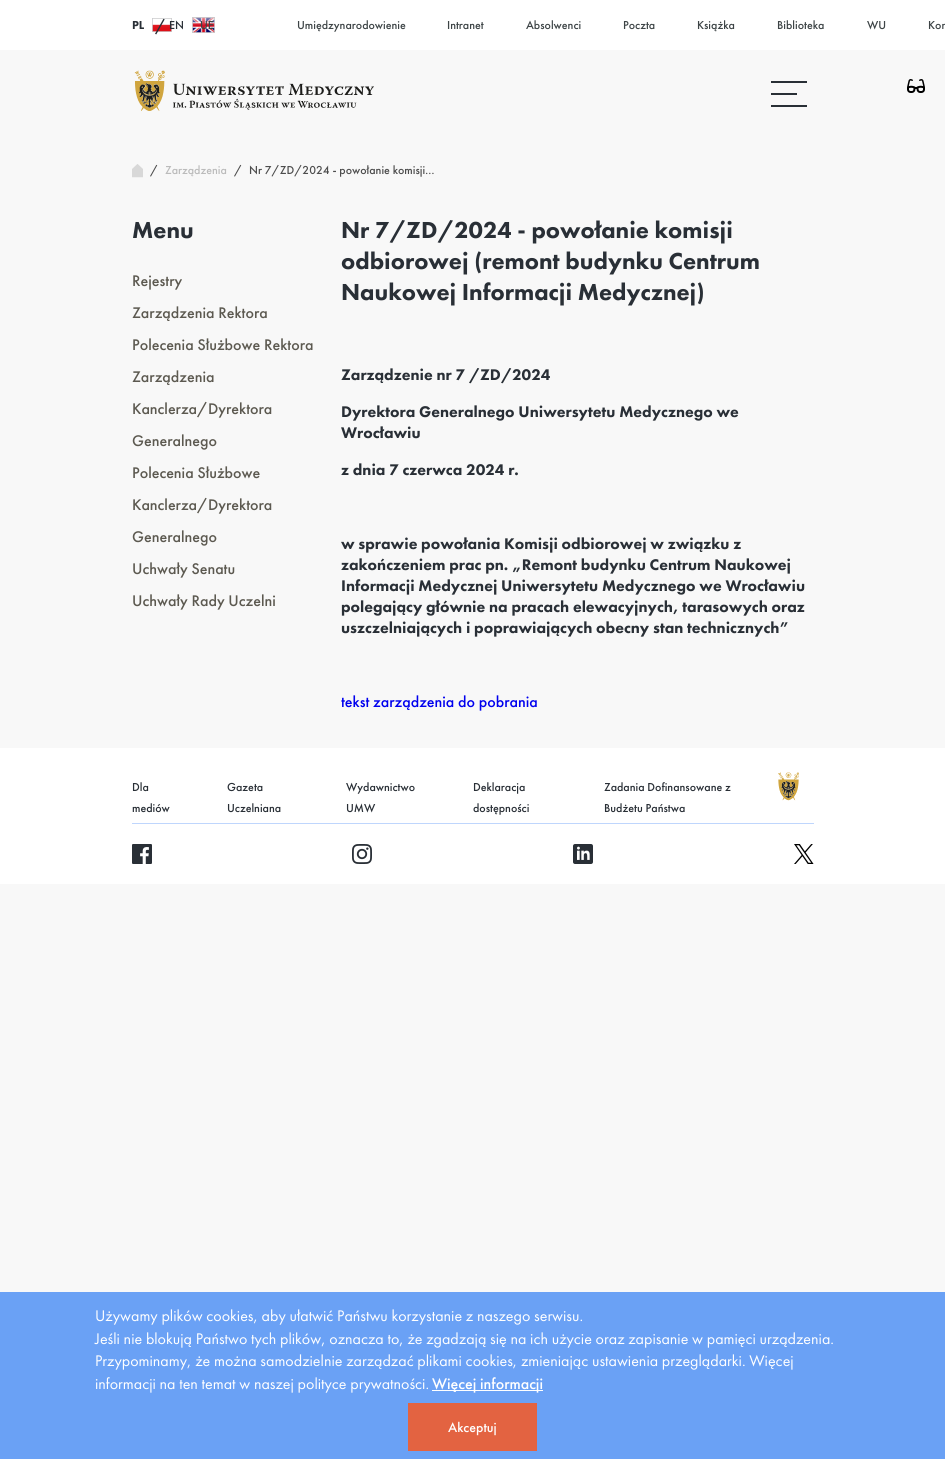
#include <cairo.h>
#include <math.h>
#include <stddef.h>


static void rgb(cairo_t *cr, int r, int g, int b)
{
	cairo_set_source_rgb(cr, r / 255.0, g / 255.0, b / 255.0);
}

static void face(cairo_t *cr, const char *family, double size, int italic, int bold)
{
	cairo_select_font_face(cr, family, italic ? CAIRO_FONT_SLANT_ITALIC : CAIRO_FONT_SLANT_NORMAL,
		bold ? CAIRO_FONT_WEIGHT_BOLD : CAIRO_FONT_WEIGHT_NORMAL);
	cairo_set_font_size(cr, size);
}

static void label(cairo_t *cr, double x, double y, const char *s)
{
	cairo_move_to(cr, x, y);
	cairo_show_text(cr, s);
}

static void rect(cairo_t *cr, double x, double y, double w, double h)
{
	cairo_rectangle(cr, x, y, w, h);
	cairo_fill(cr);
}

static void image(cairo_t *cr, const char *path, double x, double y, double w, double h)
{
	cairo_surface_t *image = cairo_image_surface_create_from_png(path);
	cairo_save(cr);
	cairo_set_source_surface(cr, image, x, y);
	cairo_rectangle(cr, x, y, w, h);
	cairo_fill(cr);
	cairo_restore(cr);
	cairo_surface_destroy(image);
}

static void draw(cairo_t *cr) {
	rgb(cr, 248, 248, 248);
	cairo_paint(cr);
	rgb(cr, 255, 255, 255);
	rect(cr, 0, 0, 945, 50);
	face(cr, "Futura PT Black", 12, 0, 0);
	rgb(cr, 41, 47, 54);
	label(cr, 132, 29, "PL");
	image(cr, "image0.png", 152, 18, 20, 14);
	face(cr, "Futura PT Medium", 16, 0, 0);
	label(cr, 155, 31, "/");
	face(cr, "Futura PT Medium", 12, 0, 0);
	label(cr, 169, 29, "EN");
	image(cr, "image1.png", 192, 17, 23, 16);
	rgb(cr, 61, 68, 70);
	label(cr, 200, 29, "UE");
	label(cr, 297, 29, "Umiędzynarodowienie");
	label(cr, 447, 29, "Intranet");
	label(cr, 526, 29, "Absolwenci");
	label(cr, 623, 29, "Poczta");
	label(cr, 697, 29, "Książka");
	label(cr, 777, 29, "Biblioteka");
	label(cr, 867, 29, "WU");
	label(cr, 928, 29, "Kon");
	image(cr, "image2.png", 134, 70, 240, 41);
	rgb(cr, 41, 47, 54);
	rect(cr, 771, 81, 36, 2);
	rect(cr, 771, 93, 26, 2);
	rect(cr, 771, 105, 36, 2);
	image(cr, "image3.png", 132, 164, 11, 14);
	rgb(cr, 77, 77, 77);
	label(cr, 150, 174, "/");
	rgb(cr, 187, 187, 187);
	label(cr, 165, 174, "Zarządzenia");
	rgb(cr, 77, 77, 77);
	label(cr, 234, 174, "/");
	label(cr, 249, 174, "Nr 7/ZD/2024 - powołanie komisji…");
	face(cr, "Futura PT Black", 24, 0, 0);
	rgb(cr, 41, 47, 54);
	label(cr, 132, 238, "Menu");
	face(cr, "Futura PT Medium", 16, 0, 0);
	rgb(cr, 92, 89, 80);
	label(cr, 132, 286, "Rejestry");
	label(cr, 132, 318, "Zarządzenia Rektora");
	label(cr, 132, 350, "Polecenia Służbowe Rektora");
	label(cr, 132, 382, "Zarządzenia");
	label(cr, 132, 414, "Kanclerza/Dyrektora");
	label(cr, 132, 446, "Generalnego");
	label(cr, 132, 478, "Polecenia Służbowe");
	label(cr, 132, 510, "Kanclerza/Dyrektora");
	label(cr, 132, 542, "Generalnego");
	label(cr, 132, 574, "Uchwały Senatu");
	label(cr, 132, 606, "Uchwały Rady Uczelni");
	face(cr, "Futura PT Black", 24, 0, 0);
	rgb(cr, 41, 47, 54);
	label(cr, 341, 238, "Nr 7/ZD/2024 - powołanie komisji");
	label(cr, 341, 269, "odbiorowej (remont budynku Centrum");
	label(cr, 341, 300, "Naukowej Informacji Medycznej)");
	face(cr, "Futura PT Black", 16, 0, 0);
	label(cr, 341, 380, "Zarządzenie nr 7 /ZD/2024");
	label(cr, 341, 417, "Dyrektora Generalnego Uniwersytetu Medycznego we");
	label(cr, 341, 438, "Wrocławiu");
	label(cr, 341, 475, "z dnia 7 czerwca 2024 r.");
	label(cr, 341, 549, "w sprawie powołania Komisji odbiorowej w związku z");
	label(cr, 341, 570, "zakończeniem prac pn. „Remont budynku Centrum Naukowej");
	label(cr, 341, 591, "Informacji Medycznej Uniwersytetu Medycznego we Wrocławiu");
	label(cr, 341, 612, "polegający głównie na pracach elewacyjnych, tarasowych oraz");
	label(cr, 341, 633, "uszczelniających i poprawiających obecny stan technicznych”");
	face(cr, "Futura PT Medium", 16, 0, 0);
	rgb(cr, 0, 0, 238);
	label(cr, 341, 707, "tekst zarządzenia do pobrania");
	rgb(cr, 255, 255, 255);
	rect(cr, 0, 748, 945, 136);
	rgb(cr, 191, 214, 253);
	rect(cr, 132, 823, 682, 1);
	face(cr, "Futura PT Medium", 12, 0, 0);
	rgb(cr, 41, 47, 54);
	label(cr, 132, 791, "Dla");
	label(cr, 132, 812, "mediów");
	label(cr, 227, 791, "Gazeta");
	label(cr, 227, 812, "Uczelniana");
	label(cr, 346, 791, "Wydawnictwo");
	label(cr, 346, 812, "UMW");
	label(cr, 473, 791, "Deklaracja");
	label(cr, 473, 812, "dostępności");
	label(cr, 604, 791, "Zadania Dofinansowane z");
	label(cr, 604, 812, "Budżetu Państwa");
	image(cr, "image4.png", 778, 772, 21, 29);
	image(cr, "image5.png", 132, 844, 20, 20);
	image(cr, "image6.png", 352, 844, 20, 20);
	image(cr, "image7.png", 573, 844, 20, 20);
	image(cr, "image8.png", 794, 844, 20, 20);
	image(cr, "image9.png", 907, 79, 18, 14);
	rgb(cr, 106, 161, 245);
	rect(cr, 0, 1292, 945, 167);
	face(cr, "Futura PT", 16, 0, 0);
	rgb(cr, 255, 255, 255);
	label(cr, 95, 1321, "Używamy plików cookies, aby ułatwić Państwu korzystanie z naszego serwisu.");
	label(cr, 95, 1344, "Jeśli nie blokują Państwo tych plików, oznacza to, że zgadzają się na ich użycie oraz zapisanie w pamięci urządzenia.");
	label(cr, 95, 1366, "Przypominamy, że można samodzielnie zarządzać plikami cookies, zmieniając ustawienia przeglądarki. Więcej");
	label(cr, 95, 1389, "informacji na ten temat w naszej polityce prywatności.");
	rect(cr, 432, 1390, 111, 1);
	face(cr, "Futura PT Medium", 16, 0, 0);
	label(cr, 432, 1389, "Więcej informacji");
	rgb(cr, 227, 99, 65);
	rect(cr, 408, 1403, 129, 48);
	face(cr, "Futura PT Medium", 14, 0, 0);
	rgb(cr, 255, 255, 255);
	label(cr, 448, 1432, "Akceptuj");
}

int main(void) {
	cairo_surface_t *surface = cairo_image_surface_create(CAIRO_FORMAT_RGB24, 945, 1459);
	cairo_t *cr = cairo_create(surface);
	cairo_font_options_t *options = cairo_font_options_create();
	cairo_font_options_set_hint_metrics(options, CAIRO_HINT_METRICS_OFF);
	cairo_font_options_set_hint_style(options, CAIRO_HINT_STYLE_NONE);
	cairo_set_font_options(cr, options);
	cairo_set_miter_limit(cr, 4);
	draw(cr);
	cairo_surface_write_to_png(surface, "render.png");
	cairo_font_options_destroy(options);
	cairo_destroy(cr);
	cairo_surface_destroy(surface);
	return 0;
}
